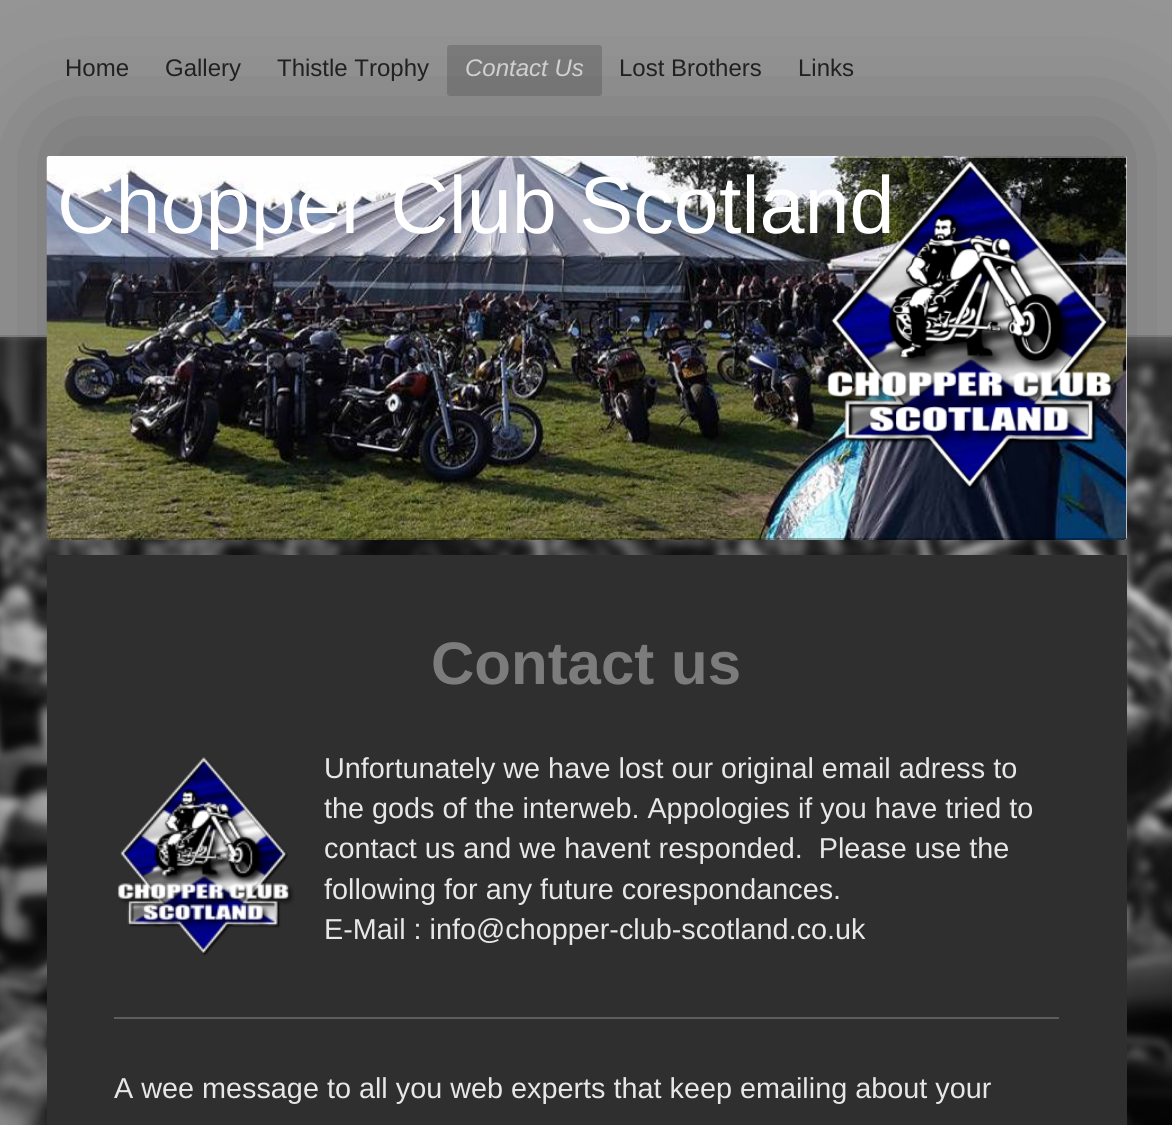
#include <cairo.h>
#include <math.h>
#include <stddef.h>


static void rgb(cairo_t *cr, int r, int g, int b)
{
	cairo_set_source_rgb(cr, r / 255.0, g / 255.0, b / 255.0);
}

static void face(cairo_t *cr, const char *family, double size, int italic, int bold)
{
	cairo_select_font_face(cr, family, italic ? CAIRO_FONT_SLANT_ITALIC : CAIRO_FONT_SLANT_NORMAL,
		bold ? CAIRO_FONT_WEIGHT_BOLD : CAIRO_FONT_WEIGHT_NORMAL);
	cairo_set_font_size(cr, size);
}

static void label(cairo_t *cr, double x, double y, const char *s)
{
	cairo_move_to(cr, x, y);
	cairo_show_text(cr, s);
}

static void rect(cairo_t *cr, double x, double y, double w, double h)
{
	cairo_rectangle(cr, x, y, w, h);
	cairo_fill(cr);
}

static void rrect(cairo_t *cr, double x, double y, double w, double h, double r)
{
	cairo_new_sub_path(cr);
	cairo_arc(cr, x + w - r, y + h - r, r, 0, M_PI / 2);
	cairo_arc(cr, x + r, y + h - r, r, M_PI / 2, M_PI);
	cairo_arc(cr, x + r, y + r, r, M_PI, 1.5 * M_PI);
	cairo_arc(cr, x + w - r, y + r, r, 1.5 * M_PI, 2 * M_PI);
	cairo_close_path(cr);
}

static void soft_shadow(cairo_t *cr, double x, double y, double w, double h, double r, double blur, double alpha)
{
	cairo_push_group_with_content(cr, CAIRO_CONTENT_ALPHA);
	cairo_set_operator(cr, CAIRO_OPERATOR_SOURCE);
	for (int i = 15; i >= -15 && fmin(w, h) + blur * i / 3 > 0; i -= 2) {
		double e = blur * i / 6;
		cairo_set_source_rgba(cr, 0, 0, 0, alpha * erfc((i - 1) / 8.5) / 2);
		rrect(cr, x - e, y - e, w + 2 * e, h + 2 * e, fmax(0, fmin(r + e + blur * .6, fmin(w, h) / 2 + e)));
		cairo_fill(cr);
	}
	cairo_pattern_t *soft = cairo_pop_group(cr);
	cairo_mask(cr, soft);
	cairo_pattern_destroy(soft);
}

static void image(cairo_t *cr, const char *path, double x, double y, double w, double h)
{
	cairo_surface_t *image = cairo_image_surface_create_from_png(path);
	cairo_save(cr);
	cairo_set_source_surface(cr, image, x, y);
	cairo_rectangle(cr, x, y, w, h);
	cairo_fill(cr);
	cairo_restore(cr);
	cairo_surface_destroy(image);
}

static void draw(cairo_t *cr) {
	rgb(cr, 255, 255, 255);
	cairo_paint(cr);
	image(cr, "image0.png", 0, 337, 1172, 788);
	rgb(cr, 149, 149, 149);
	rect(cr, 0, 0, 1172, 335);
	rgb(cr, 131, 131, 131);
	rect(cr, 0, 335, 1172, 2);
	face(cr, "Liberation Sans", 24, 0, 0);
	rgb(cr, 34, 34, 34);
	label(cr, 65, 76, "Home");
	label(cr, 165, 76, "Gallery");
	label(cr, 277, 76, "Thistle Trophy");
	rgb(cr, 124, 124, 124);
	rrect(cr, 447, 45, 155, 51, 3);
	cairo_fill(cr);
	face(cr, "Liberation Sans", 24, 1, 0);
	rgb(cr, 216, 216, 216);
	label(cr, 465, 76, "Contact Us");
	face(cr, "Liberation Sans", 24, 0, 0);
	rgb(cr, 34, 34, 34);
	label(cr, 619, 76, "Lost Brothers");
	label(cr, 798, 76, "Links");
	rgb(cr, 0, 0, 0);
	soft_shadow(cr, 47, 126, 1080, 384, 3, 60, 0.24);
	soft_shadow(cr, 122, 327, 930, 234, 0, 15, 0.18);
	rgb(cr, 238, 238, 238);
	rrect(cr, 47, 156, 1080, 384, 3);
	cairo_fill(cr);
	image(cr, "image1.png", 46, 156, 1081, 384);
	cairo_save(cr);
	rrect(cr, 47, 156, 1080, 384, 3);
	cairo_clip(cr);
	cairo_set_source_rgba(cr, 1, 1, 1, 0.4);
	rect(cr, 47, 156, 1080, 2);
	cairo_restore(cr);
	cairo_set_source_rgba(cr, 0, 0, 0, 0.3);
	cairo_new_path(cr);
	cairo_move_to(cr, 47, 538);
	cairo_curve_to(cr, 48, 539, 49, 540, 50, 540);
	cairo_line_to(cr, 1124, 540);
	cairo_curve_to(cr, 1125, 540, 1126, 539, 1127, 538);
	cairo_close_path(cr);
	cairo_fill(cr);
	image(cr, "image2.png", 827, 160, 293, 330);
	face(cr, "Liberation Sans", 81, 0, 0);
	rgb(cr, 255, 255, 255);
	label(cr, 57, 233, "Chopper Club Scotland");
	rgb(cr, 47, 47, 47);
	rect(cr, 47, 555, 1080, 570);
	face(cr, "Liberation Sans", 60, 0, 1);
	rgb(cr, 124, 124, 124);
	label(cr, 431, 684, "Contact us");
	image(cr, "image3.png", 117, 757, 177, 199);
	face(cr, "Liberation Sans", 28.8, 0, 0);
	rgb(cr, 231, 231, 231);
	label(cr, 324, 778, "Unfortunately we have lost our original email adress to");
	label(cr, 324, 818, "the gods of the interweb. Appologies if you have tried to");
	label(cr, 324, 858, "contact us and we havent responded.  Please use the");
	label(cr, 324, 899, "following for any future corespondances.");
	label(cr, 324, 939, "E-Mail : info@chopper-club-scotland.co.uk");
	rgb(cr, 93, 93, 93);
	rect(cr, 114, 1017, 945, 2);
	rgb(cr, 231, 231, 231);
	label(cr, 114, 1098, "A wee message to all you web experts that keep emailing about your");
}

int main(void) {
	cairo_surface_t *surface = cairo_image_surface_create(CAIRO_FORMAT_RGB24, 1172, 1125);
	cairo_t *cr = cairo_create(surface);
	cairo_font_options_t *options = cairo_font_options_create();
	cairo_font_options_set_hint_metrics(options, CAIRO_HINT_METRICS_OFF);
	cairo_font_options_set_hint_style(options, CAIRO_HINT_STYLE_NONE);
	cairo_set_font_options(cr, options);
	cairo_set_miter_limit(cr, 4);
	draw(cr);
	cairo_surface_write_to_png(surface, "render.png");
	cairo_font_options_destroy(options);
	cairo_destroy(cr);
	cairo_surface_destroy(surface);
	return 0;
}
